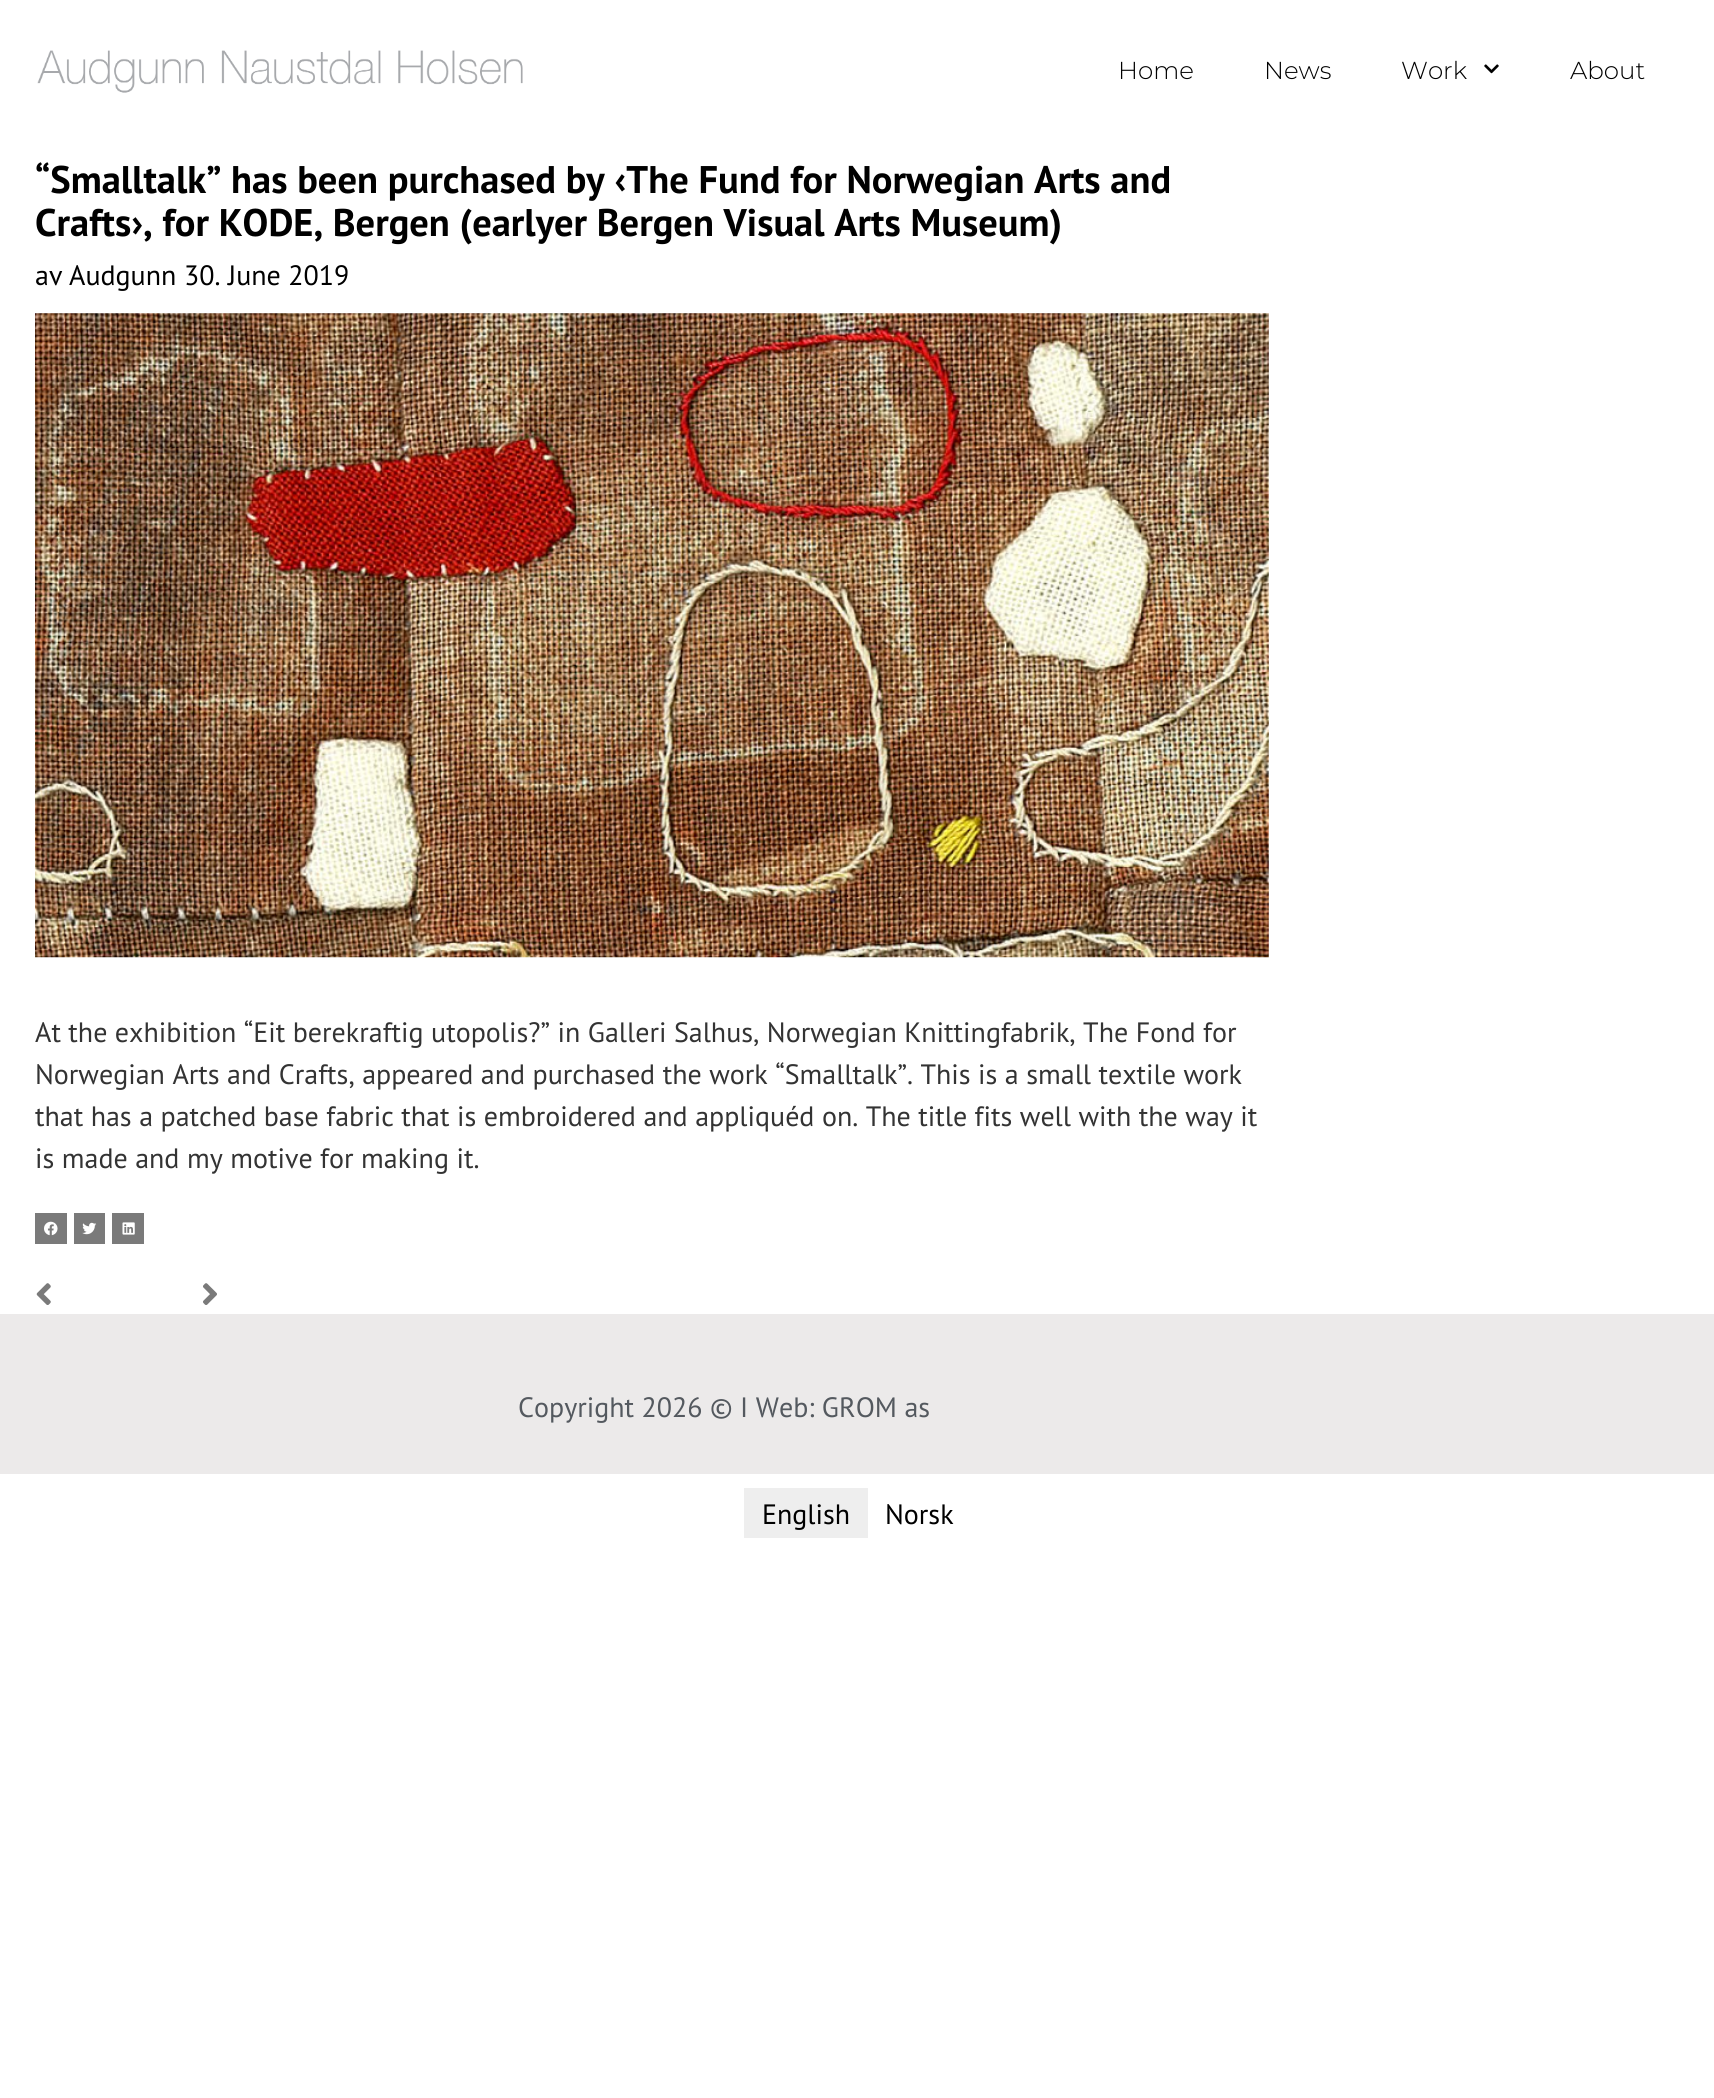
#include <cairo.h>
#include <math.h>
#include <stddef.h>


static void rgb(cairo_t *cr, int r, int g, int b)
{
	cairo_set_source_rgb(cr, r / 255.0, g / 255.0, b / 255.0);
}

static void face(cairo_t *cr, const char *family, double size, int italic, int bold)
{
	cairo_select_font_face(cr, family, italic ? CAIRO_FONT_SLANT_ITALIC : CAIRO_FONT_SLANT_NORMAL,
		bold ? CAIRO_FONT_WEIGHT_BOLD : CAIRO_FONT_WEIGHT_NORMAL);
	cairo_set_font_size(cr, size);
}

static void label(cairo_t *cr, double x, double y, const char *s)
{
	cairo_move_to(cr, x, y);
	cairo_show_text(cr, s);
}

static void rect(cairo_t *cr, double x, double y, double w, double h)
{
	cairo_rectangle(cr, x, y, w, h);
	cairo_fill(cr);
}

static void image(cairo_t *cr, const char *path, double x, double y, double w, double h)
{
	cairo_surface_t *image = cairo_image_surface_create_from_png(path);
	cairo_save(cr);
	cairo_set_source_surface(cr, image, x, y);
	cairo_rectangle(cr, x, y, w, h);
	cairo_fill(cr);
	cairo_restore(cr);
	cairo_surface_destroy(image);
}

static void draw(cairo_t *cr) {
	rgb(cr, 255, 255, 255);
	cairo_paint(cr);
	image(cr, "image0.png", 37, 50, 486, 43);
	face(cr, "Montserrat Light", 24.5, 0, 0);
	rgb(cr, 0, 0, 0);
	label(cr, 1118, 79, "Home");
	label(cr, 1264, 79, "News");
	label(cr, 1401, 79, "Work");
	image(cr, "image1.png", 1484, 64, 15, 10);
	label(cr, 1570, 79, "About");
	face(cr, "PT Sans", 38.5, 0, 1);
	label(cr, 35, 193, "“Smalltalk” has been purchased by ‹The Fund for Norwegian Arts and");
	label(cr, 35, 236, "Crafts›, for KODE, Bergen (earlyer Bergen Visual Arts Museum)");
	face(cr, "PT Sans", 28, 0, 0);
	label(cr, 35, 285, "av");
	label(cr, 69, 285, "Audgunn");
	label(cr, 184, 285, "30. June 2019");
	image(cr, "image2.png", 35, 313, 1234, 645);
	rgb(cr, 51, 51, 51);
	label(cr, 35, 1042, "At the exhibition “Eit berekraftig utopolis?” in Galleri Salhus, Norwegian Knittingfabrik, The Fond for");
	label(cr, 35, 1084, "Norwegian Arts and Crafts, appeared and purchased the work “Smalltalk”. This is a small textile work");
	label(cr, 35, 1126, "that has a patched base fabric that is embroidered and appliquéd on. The title fits well with the way it");
	label(cr, 35, 1168, "is made and my motive for making it.");
	rgb(cr, 122, 122, 122);
	rect(cr, 35, 1213, 32, 31);
	image(cr, "image3.png", 44, 1221, 14, 15);
	rect(cr, 74, 1213, 31, 31);
	image(cr, "image4.png", 82, 1222, 15, 13);
	rect(cr, 112, 1213, 32, 31);
	image(cr, "image5.png", 122, 1222, 13, 13);
	image(cr, "image6.png", 36, 1283, 15, 22);
	image(cr, "image7.png", 203, 1283, 14, 22);
	rgb(cr, 236, 234, 234);
	rect(cr, 0, 1314, 1714, 160);
	rgb(cr, 84, 89, 95);
	label(cr, 518, 1417, "Copyright 2026 © I Web: GROM as");
	rgb(cr, 238, 238, 238);
	rect(cr, 744, 1488, 124, 50);
	rgb(cr, 0, 0, 0);
	label(cr, 762, 1524, "English");
	label(cr, 885, 1524, "Norsk");
}

int main(void) {
	cairo_surface_t *surface = cairo_image_surface_create(CAIRO_FORMAT_RGB24, 1714, 2098);
	cairo_t *cr = cairo_create(surface);
	cairo_font_options_t *options = cairo_font_options_create();
	cairo_font_options_set_hint_metrics(options, CAIRO_HINT_METRICS_OFF);
	cairo_font_options_set_hint_style(options, CAIRO_HINT_STYLE_NONE);
	cairo_set_font_options(cr, options);
	cairo_set_miter_limit(cr, 4);
	draw(cr);
	cairo_surface_write_to_png(surface, "render.png");
	cairo_font_options_destroy(options);
	cairo_destroy(cr);
	cairo_surface_destroy(surface);
	return 0;
}
